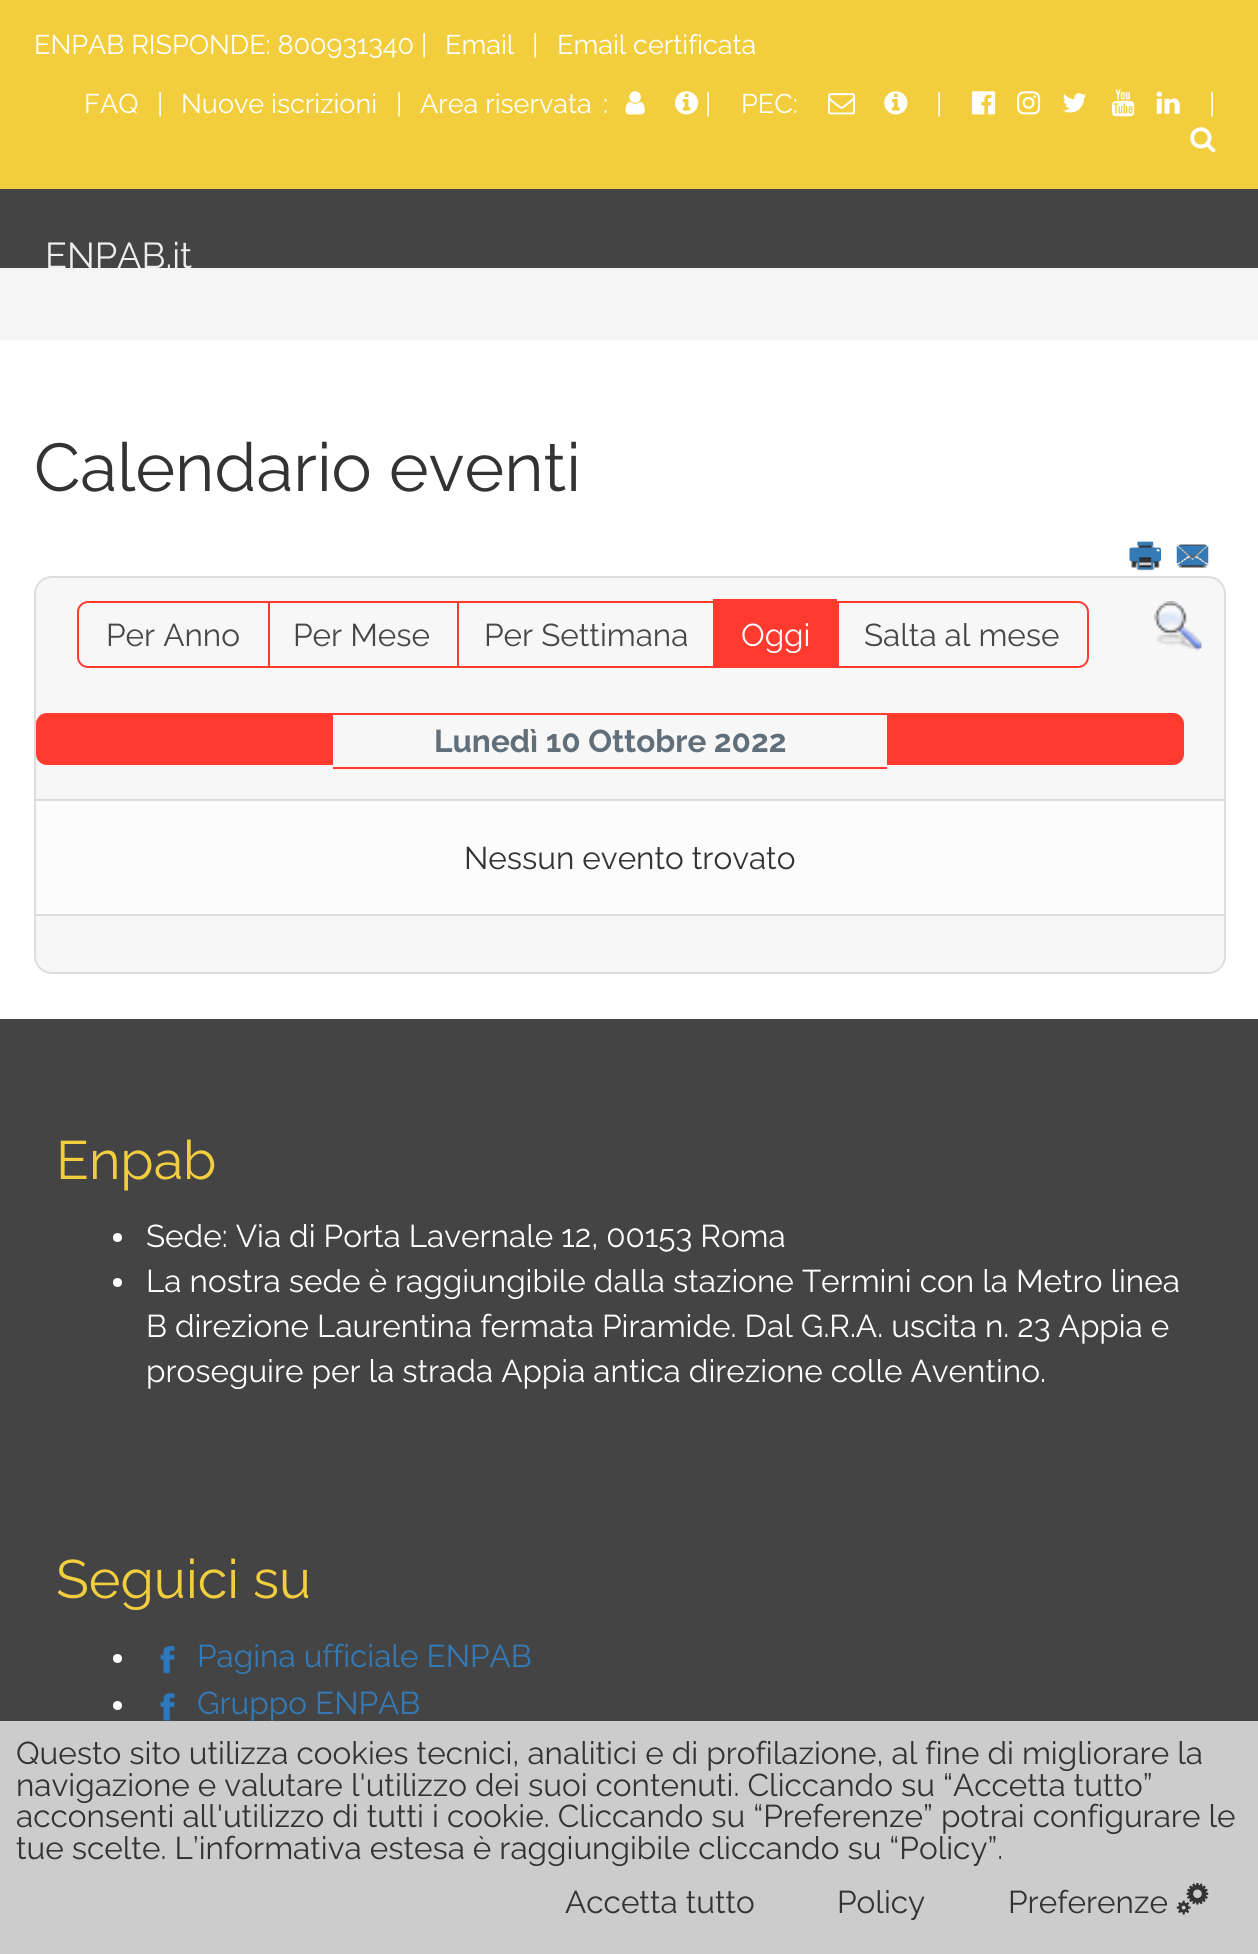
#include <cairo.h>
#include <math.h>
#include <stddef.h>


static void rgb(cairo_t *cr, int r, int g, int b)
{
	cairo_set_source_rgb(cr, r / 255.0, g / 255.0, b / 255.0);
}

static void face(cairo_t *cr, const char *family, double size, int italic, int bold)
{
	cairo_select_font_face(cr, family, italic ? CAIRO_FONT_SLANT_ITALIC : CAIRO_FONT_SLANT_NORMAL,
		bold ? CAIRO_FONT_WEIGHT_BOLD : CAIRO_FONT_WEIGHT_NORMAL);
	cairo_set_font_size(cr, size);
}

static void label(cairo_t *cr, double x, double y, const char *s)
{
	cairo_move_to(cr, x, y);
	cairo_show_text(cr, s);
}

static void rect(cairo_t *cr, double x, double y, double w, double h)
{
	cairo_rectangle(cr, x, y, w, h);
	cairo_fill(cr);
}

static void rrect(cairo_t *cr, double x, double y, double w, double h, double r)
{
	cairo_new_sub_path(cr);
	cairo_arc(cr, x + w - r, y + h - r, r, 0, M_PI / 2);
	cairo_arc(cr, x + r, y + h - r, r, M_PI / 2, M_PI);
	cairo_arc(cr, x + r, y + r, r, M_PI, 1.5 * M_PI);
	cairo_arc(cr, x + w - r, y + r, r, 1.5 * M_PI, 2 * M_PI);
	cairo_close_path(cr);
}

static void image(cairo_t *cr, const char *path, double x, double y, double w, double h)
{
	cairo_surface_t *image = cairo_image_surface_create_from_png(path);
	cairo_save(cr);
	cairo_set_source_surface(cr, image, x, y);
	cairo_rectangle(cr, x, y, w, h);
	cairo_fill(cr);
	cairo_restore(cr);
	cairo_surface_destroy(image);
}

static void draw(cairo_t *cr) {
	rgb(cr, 255, 255, 255);
	cairo_paint(cr);
	rgb(cr, 242, 206, 63);
	rect(cr, 0, 0, 1258, 189);
	face(cr, "Raleway", 27, 0, 0);
	rgb(cr, 255, 255, 255);
	label(cr, 34, 54, "ENPAB RISPONDE: 800931340 |");
	label(cr, 445, 54, "Email");
	label(cr, 532, 54, "|");
	label(cr, 557, 54, "Email certificata");
	label(cr, 84, 113, "FAQ");
	label(cr, 157, 113, "|");
	label(cr, 181, 113, "Nuove iscrizioni");
	label(cr, 396, 113, "|");
	label(cr, 420, 113, "Area riservata");
	label(cr, 603, 113, ":");
	image(cr, "image0.png", 625, 91, 20, 24);
	image(cr, "image1.png", 675, 91, 24, 24);
	label(cr, 705, 113, "|");
	label(cr, 741, 113, "PEC:");
	image(cr, "image2.png", 828, 93, 27, 22);
	image(cr, "image3.png", 884, 91, 24, 24);
	label(cr, 936, 113, "|");
	image(cr, "image4.png", 972, 91, 24, 24);
	image(cr, "image5.png", 1017, 91, 24, 24);
	image(cr, "image6.png", 1062, 93, 25, 20);
	image(cr, "image7.png", 1111, 89, 24, 28);
	image(cr, "image8.png", 1156, 91, 24, 23);
	label(cr, 1209, 113, "|");
	image(cr, "image9.png", 1190, 127, 26, 26);
	rgb(cr, 68, 68, 68);
	rect(cr, 0, 189, 1258, 79);
	rgb(cr, 245, 245, 245);
	rect(cr, 0, 268, 1258, 72);
	face(cr, "Raleway", 36, 0, 0);
	rgb(cr, 238, 238, 238);
	label(cr, 45, 268, "ENPAB.it");
	face(cr, "Raleway", 67.5, 0, 0);
	rgb(cr, 51, 51, 51);
	label(cr, 34, 491, "Calendario eventi");
	image(cr, "image10.png", 1131, 544, 29, 27);
	image(cr, "image11.png", 1129, 541, 32, 29);
	image(cr, "image12.png", 1178, 544, 29, 24);
	image(cr, "image13.png", 1176, 545, 33, 21);
	rgb(cr, 247, 247, 247);
	rrect(cr, 35, 577, 1190, 396, 17);
	cairo_fill_preserve(cr);
	rgb(cr, 221, 221, 221);
	cairo_stroke(cr);
	cairo_new_path(cr);
	cairo_move_to(cr, 88, 602);
	cairo_line_to(cr, 269, 602);
	cairo_line_to(cr, 269, 667);
	cairo_line_to(cr, 88, 667);
	cairo_curve_to(cr, 82.5, 667, 78, 662.5, 78, 657);
	cairo_line_to(cr, 78, 612);
	cairo_curve_to(cr, 78, 606.5, 82.5, 602, 88, 602);
	cairo_close_path(cr);
	rgb(cr, 255, 59, 48);
	cairo_stroke(cr);
	face(cr, "Raleway", 31.5, 0, 0);
	rgb(cr, 71, 71, 71);
	label(cr, 106, 646, "Per Anno");
	rgb(cr, 255, 59, 48);
	rect(cr, 266, 601, 193, 2);
	rect(cr, 457, 601, 2, 67);
	rect(cr, 266, 666, 452, 2);
	rgb(cr, 71, 71, 71);
	label(cr, 293, 646, "Per Mese");
	rgb(cr, 255, 59, 48);
	rect(cr, 457, 601, 261, 2);
	rgb(cr, 71, 71, 71);
	label(cr, 484, 646, "Per Settimana");
	rgb(cr, 255, 59, 48);
	rect(cr, 837, 601, 2, 67);
	rect(cr, 713, 599, 124, 69);
	rgb(cr, 255, 255, 255);
	label(cr, 741, 646, "Oggi");
	rgb(cr, 255, 59, 48);
	cairo_set_fill_rule(cr, CAIRO_FILL_RULE_EVEN_ODD);
	cairo_new_path(cr);
	cairo_move_to(cr, 837, 601);
	cairo_line_to(cr, 1078, 601);
	cairo_curve_to(cr, 1084, 601, 1089, 606, 1089, 612);
	cairo_line_to(cr, 1089, 657);
	cairo_curve_to(cr, 1089, 663, 1084, 668, 1078, 668);
	cairo_line_to(cr, 837, 668);
	cairo_close_path(cr);
	cairo_move_to(cr, 837, 603);
	cairo_line_to(cr, 1078, 603);
	cairo_curve_to(cr, 1083, 603, 1087, 607, 1087, 612);
	cairo_line_to(cr, 1087, 657);
	cairo_curve_to(cr, 1087, 662, 1083, 666, 1078, 666);
	cairo_line_to(cr, 837, 666);
	cairo_close_path(cr);
	cairo_fill(cr);
	rgb(cr, 71, 71, 71);
	label(cr, 864, 646, "Salta al mese");
	image(cr, "image14.png", 1154, 601, 48, 50);
	rgb(cr, 255, 59, 48);
	cairo_new_path(cr);
	cairo_move_to(cr, 47, 714);
	cairo_line_to(cr, 332, 714);
	cairo_line_to(cr, 332, 764);
	cairo_line_to(cr, 47, 764);
	cairo_curve_to(cr, 41.5, 764, 37, 759.5, 37, 754);
	cairo_line_to(cr, 37, 724);
	cairo_curve_to(cr, 37, 718.5, 41.5, 714, 47, 714);
	cairo_close_path(cr);
	cairo_fill_preserve(cr);
	cairo_stroke(cr);
	rect(cr, 333, 713, 554, 2);
	rect(cr, 333, 767, 554, 2);
	face(cr, "Raleway", 31.5, 0, 1);
	rgb(cr, 96, 111, 121);
	label(cr, 434, 752, "Lunedì 10 Ottobre 2022");
	rgb(cr, 255, 59, 48);
	cairo_new_path(cr);
	cairo_move_to(cr, 888, 714);
	cairo_line_to(cr, 1173, 714);
	cairo_curve_to(cr, 1178.5, 714, 1183, 718.5, 1183, 724);
	cairo_line_to(cr, 1183, 754);
	cairo_curve_to(cr, 1183, 759.5, 1178.5, 764, 1173, 764);
	cairo_line_to(cr, 888, 764);
	cairo_close_path(cr);
	cairo_fill_preserve(cr);
	cairo_stroke(cr);
	rgb(cr, 252, 252, 252);
	cairo_rectangle(cr, 35, 800, 1190, 115);
	cairo_fill_preserve(cr);
	rgb(cr, 221, 221, 221);
	cairo_stroke(cr);
	face(cr, "Raleway", 31.5, 0, 0);
	rgb(cr, 51, 51, 51);
	label(cr, 464, 869, "Nessun evento trovato");
	rgb(cr, 68, 68, 68);
	rect(cr, 0, 1019, 1258, 702);
	face(cr, "Raleway", 54, 0, 0);
	rgb(cr, 242, 206, 63);
	label(cr, 56, 1179, "Enpab");
	rgb(cr, 255, 255, 255);
	cairo_new_path(cr);
	cairo_arc(cr, 117.5, 1237.5, 4.5, 0, 2 * M_PI);
	cairo_fill(cr);
	face(cr, "Raleway", 31.5, 0, 0);
	label(cr, 146, 1247, "Sede: Via di Porta Lavernale 12, 00153 Roma");
	cairo_new_path(cr);
	cairo_arc(cr, 117.5, 1282.5, 4.5, 0, 2 * M_PI);
	cairo_fill(cr);
	label(cr, 146, 1292, "La nostra sede è raggiungibile dalla stazione Termini con la Metro linea");
	label(cr, 146, 1337, "B direzione Laurentina fermata Piramide. Dal G.R.A. uscita n. 23 Appia e");
	label(cr, 146, 1382, "proseguire per la strada Appia antica direzione colle Aventino.");
	face(cr, "Raleway", 54, 0, 0);
	rgb(cr, 242, 206, 63);
	label(cr, 56, 1598, "Seguici su");
	rgb(cr, 255, 255, 255);
	cairo_new_path(cr);
	cairo_arc(cr, 117.5, 1658.5, 4.5, 0, 2 * M_PI);
	cairo_fill(cr);
	image(cr, "image15.png", 160, 1646, 15, 28);
	face(cr, "Raleway", 31.5, 0, 0);
	rgb(cr, 51, 122, 183);
	label(cr, 197, 1667, "Pagina ufficiale ENPAB");
	rgb(cr, 255, 255, 255);
	cairo_new_path(cr);
	cairo_arc(cr, 117.5, 1705.5, 4.5, 0, 2 * M_PI);
	cairo_fill(cr);
	image(cr, "image16.png", 160, 1693, 15, 28);
	rgb(cr, 51, 122, 183);
	label(cr, 197, 1714, "Gruppo ENPAB");
	rgb(cr, 204, 204, 204);
	rect(cr, 0, 1721, 1258, 233);
	rgb(cr, 51, 51, 51);
	label(cr, 16, 1764, "Questo sito utilizza cookies tecnici, analitici e di profilazione, al fine di migliorare la");
	label(cr, 16, 1796, "navigazione e valutare l'utilizzo dei suoi contenuti. Cliccando su “Accetta tutto”");
	label(cr, 16, 1827, "acconsenti all'utilizzo di tutti i cookie. Cliccando su “Preferenze” potrai configurare le");
	label(cr, 16, 1859, "tue scelte. L’informativa estesa è raggiungibile cliccando su “Policy”.");
	label(cr, 565, 1913, "Accetta tutto");
	label(cr, 837, 1913, "Policy");
	label(cr, 1008, 1913, "Preferenze");
	image(cr, "image17.png", 1176, 1883, 33, 32);
}

int main(void) {
	cairo_surface_t *surface = cairo_image_surface_create(CAIRO_FORMAT_RGB24, 1258, 1954);
	cairo_t *cr = cairo_create(surface);
	cairo_font_options_t *options = cairo_font_options_create();
	cairo_font_options_set_hint_metrics(options, CAIRO_HINT_METRICS_OFF);
	cairo_font_options_set_hint_style(options, CAIRO_HINT_STYLE_NONE);
	cairo_set_font_options(cr, options);
	cairo_set_miter_limit(cr, 4);
	draw(cr);
	cairo_surface_write_to_png(surface, "render.png");
	cairo_font_options_destroy(options);
	cairo_destroy(cr);
	cairo_surface_destroy(surface);
	return 0;
}
